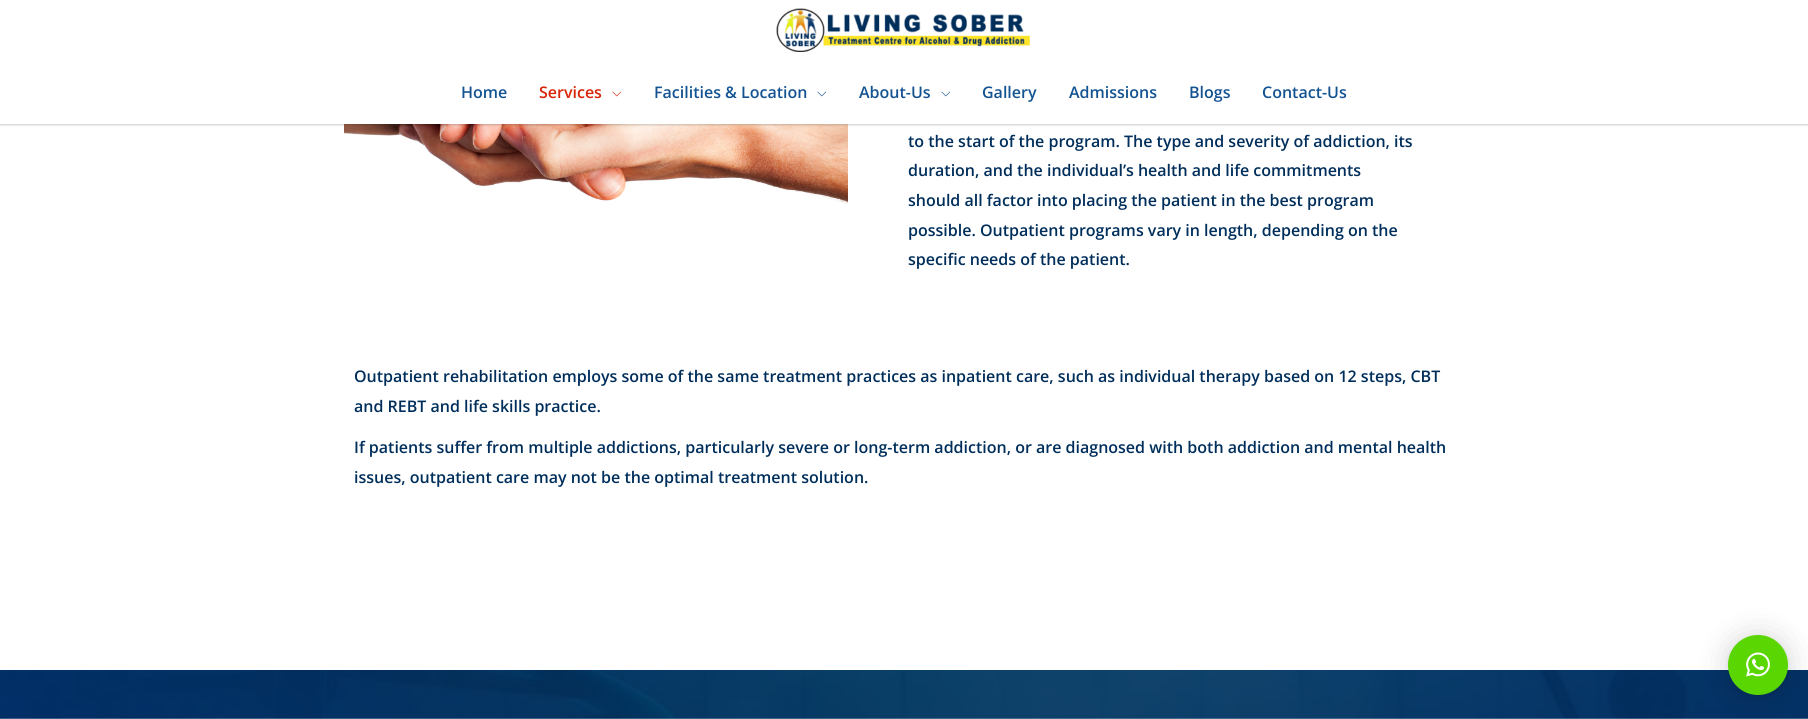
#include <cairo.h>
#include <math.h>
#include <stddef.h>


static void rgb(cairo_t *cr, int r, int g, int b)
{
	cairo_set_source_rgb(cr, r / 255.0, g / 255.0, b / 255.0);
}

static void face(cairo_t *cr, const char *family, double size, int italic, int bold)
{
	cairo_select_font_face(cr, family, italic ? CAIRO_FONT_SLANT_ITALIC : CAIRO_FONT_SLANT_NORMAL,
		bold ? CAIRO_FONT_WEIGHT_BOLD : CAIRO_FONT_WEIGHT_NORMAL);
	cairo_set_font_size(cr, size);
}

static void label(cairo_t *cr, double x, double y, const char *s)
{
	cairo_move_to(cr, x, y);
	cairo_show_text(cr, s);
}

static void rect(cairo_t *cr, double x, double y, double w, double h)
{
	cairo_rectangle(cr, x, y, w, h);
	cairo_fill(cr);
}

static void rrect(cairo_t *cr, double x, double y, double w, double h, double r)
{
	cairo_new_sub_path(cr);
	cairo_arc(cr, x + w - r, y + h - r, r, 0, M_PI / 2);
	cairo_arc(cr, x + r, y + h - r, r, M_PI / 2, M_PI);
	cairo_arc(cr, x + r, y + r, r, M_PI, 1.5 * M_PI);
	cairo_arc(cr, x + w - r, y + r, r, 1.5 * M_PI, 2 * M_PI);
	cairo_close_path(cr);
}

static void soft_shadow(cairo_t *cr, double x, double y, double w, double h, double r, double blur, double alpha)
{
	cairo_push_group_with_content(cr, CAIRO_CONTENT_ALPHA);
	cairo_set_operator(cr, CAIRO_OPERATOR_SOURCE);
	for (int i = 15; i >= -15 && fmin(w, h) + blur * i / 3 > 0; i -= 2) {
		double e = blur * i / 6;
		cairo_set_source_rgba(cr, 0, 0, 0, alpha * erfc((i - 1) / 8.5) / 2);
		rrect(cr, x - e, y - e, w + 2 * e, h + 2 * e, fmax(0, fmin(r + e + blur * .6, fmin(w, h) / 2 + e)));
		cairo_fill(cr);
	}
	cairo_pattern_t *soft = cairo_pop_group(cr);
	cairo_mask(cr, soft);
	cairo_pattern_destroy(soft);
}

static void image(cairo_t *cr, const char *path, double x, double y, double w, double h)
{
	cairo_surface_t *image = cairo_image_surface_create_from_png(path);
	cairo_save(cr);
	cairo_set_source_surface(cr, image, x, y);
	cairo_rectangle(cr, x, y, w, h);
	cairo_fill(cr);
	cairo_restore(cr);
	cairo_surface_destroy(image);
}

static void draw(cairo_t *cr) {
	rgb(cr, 255, 255, 255);
	cairo_paint(cr);
	image(cr, "image3.png", 344, 124, 504, 80);
	rgb(cr, 0, 0, 0);
	soft_shadow(cr, 0, 1, 1808, 124, 0, 1, 0.2);
	rgb(cr, 255, 255, 255);
	rect(cr, 0, 0, 1808, 124);
	image(cr, "image0.png", 776, 8, 254, 44);
	face(cr, "Open Sans SemiBold", 16, 0, 0);
	rgb(cr, 19, 83, 146);
	label(cr, 461, 98, "Home");
	rgb(cr, 216, 36, 8);
	label(cr, 539, 98, "Services");
	image(cr, "image1.png", 612, 91, 9, 6);
	rgb(cr, 19, 83, 146);
	label(cr, 654, 98, "Facilities & Location");
	image(cr, "image2.png", 817, 91, 9, 6);
	label(cr, 859, 98, "About-Us");
	image(cr, "image2.png", 941, 91, 9, 6);
	label(cr, 982, 98, "Gallery");
	label(cr, 1069, 98, "Admissions");
	label(cr, 1189, 98, "Blogs");
	label(cr, 1262, 98, "Contact-Us");
	rgb(cr, 0, 46, 91);
	label(cr, 908, 147, "to the start of the program. The type and severity of addiction, its");
	label(cr, 908, 176, "duration, and the individual’s health and life commitments");
	label(cr, 908, 206, "should all factor into placing the patient in the best program");
	label(cr, 908, 236, "possible. Outpatient programs vary in length, depending on the");
	label(cr, 908, 265, "specific needs of the patient.");
	label(cr, 354, 382, "Outpatient rehabilitation employs some of the same treatment practices as inpatient care, such as individual therapy based on 12 steps, CBT");
	label(cr, 354, 412, "and REBT and life skills practice.");
	label(cr, 354, 453, "If patients suffer from multiple addictions, particularly severe or long-term addiction, or are diagnosed with both addiction and mental health");
	label(cr, 354, 483, "issues, outpatient care may not be the optimal treatment solution.");
	image(cr, "image4.png", 0, 670, 1808, 49);
	rgb(cr, 0, 0, 0);
	soft_shadow(cr, 1728, 637, 60, 60, 30, 16, 0.16);
	soft_shadow(cr, 1728, 636, 60, 60, 30, 3, 0.06);
	rgb(cr, 90, 214, 2);
	cairo_arc(cr, 1758, 665, 30, 0, 2 * M_PI);
	cairo_fill(cr);
	image(cr, "image5.png", 1746, 652, 24, 25);
}

int main(void) {
	cairo_surface_t *surface = cairo_image_surface_create(CAIRO_FORMAT_RGB24, 1808, 719);
	cairo_t *cr = cairo_create(surface);
	cairo_font_options_t *options = cairo_font_options_create();
	cairo_font_options_set_hint_metrics(options, CAIRO_HINT_METRICS_OFF);
	cairo_font_options_set_hint_style(options, CAIRO_HINT_STYLE_NONE);
	cairo_set_font_options(cr, options);
	cairo_set_miter_limit(cr, 4);
	draw(cr);
	cairo_surface_write_to_png(surface, "render.png");
	cairo_font_options_destroy(options);
	cairo_destroy(cr);
	cairo_surface_destroy(surface);
	return 0;
}
